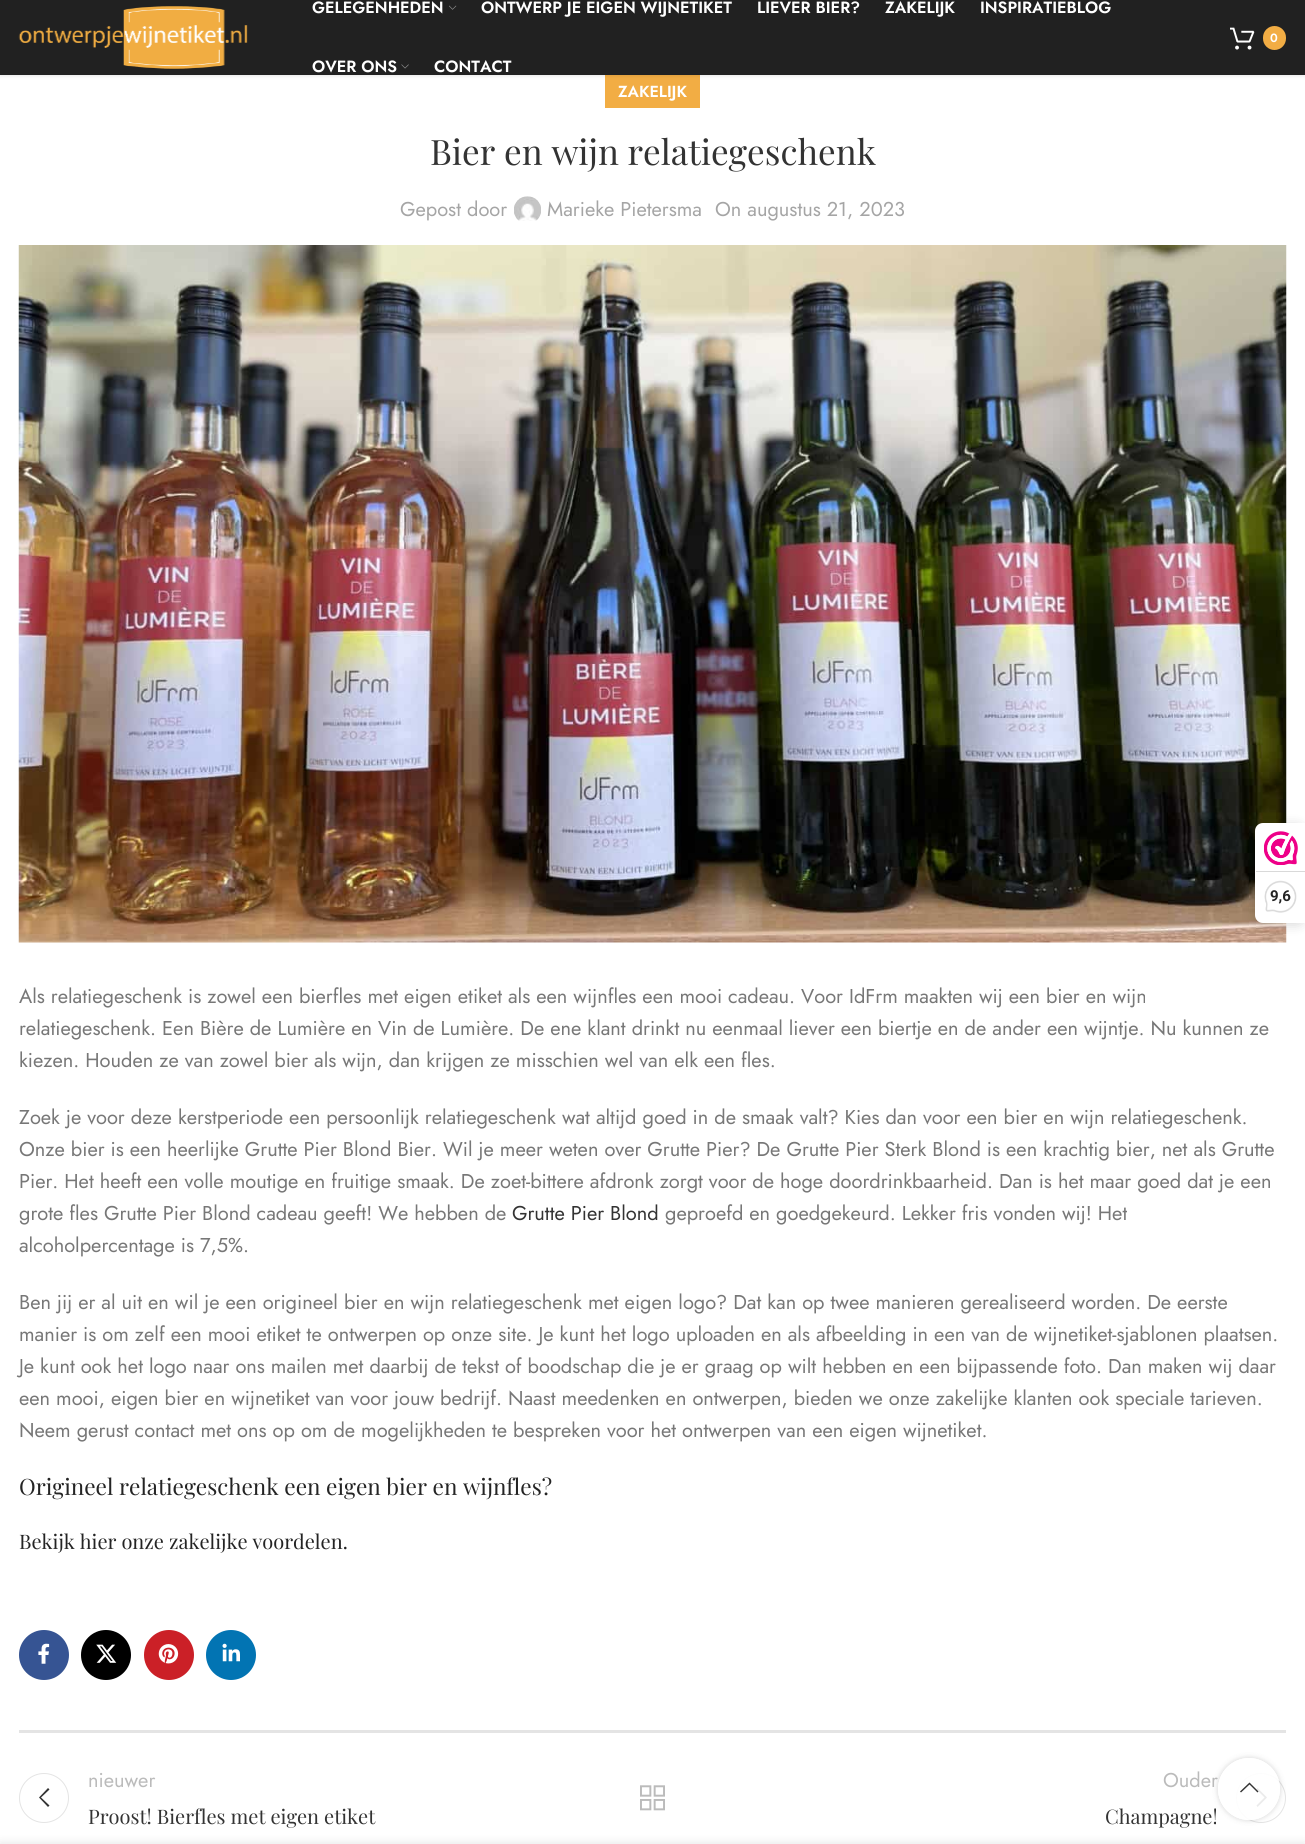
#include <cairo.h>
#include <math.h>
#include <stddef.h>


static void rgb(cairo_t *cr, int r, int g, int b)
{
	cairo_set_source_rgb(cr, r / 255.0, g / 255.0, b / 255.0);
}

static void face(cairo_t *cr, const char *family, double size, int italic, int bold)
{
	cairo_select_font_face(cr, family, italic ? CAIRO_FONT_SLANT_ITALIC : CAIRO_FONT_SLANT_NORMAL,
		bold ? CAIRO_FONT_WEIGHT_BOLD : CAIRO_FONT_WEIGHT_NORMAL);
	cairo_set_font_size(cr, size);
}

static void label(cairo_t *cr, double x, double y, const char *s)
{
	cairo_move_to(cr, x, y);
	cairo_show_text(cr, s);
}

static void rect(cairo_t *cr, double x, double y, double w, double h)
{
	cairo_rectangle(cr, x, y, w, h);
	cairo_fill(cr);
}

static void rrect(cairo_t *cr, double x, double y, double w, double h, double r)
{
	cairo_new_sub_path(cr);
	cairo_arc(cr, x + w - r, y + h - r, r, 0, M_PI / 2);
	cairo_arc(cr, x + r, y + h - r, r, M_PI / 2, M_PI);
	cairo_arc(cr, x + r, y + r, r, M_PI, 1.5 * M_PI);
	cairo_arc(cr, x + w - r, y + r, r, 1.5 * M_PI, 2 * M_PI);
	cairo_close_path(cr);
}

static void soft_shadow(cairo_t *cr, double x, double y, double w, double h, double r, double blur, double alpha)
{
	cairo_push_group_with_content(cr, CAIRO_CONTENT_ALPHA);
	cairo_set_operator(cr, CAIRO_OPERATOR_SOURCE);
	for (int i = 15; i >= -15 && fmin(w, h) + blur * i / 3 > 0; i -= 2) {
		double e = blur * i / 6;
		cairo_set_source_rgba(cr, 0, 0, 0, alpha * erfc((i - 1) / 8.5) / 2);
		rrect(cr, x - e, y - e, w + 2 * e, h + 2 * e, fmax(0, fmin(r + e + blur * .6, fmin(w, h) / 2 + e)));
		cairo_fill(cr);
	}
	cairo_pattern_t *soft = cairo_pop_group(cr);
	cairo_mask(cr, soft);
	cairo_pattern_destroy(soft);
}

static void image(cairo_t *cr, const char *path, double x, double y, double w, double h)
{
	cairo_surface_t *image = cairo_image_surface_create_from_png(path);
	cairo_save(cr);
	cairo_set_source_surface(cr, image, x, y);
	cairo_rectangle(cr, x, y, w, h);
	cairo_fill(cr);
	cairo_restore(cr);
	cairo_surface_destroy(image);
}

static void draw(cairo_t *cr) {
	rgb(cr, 255, 255, 255);
	cairo_paint(cr);
	rgb(cr, 242, 173, 68);
	rect(cr, 605, 75, 95, 33);
	rgb(cr, 0, 0, 0);
	soft_shadow(cr, 0, 1, 1305, 75, 0, 2, 0.1);
	rgb(cr, 33, 33, 33);
	rect(cr, 0, 0, 1305, 75);
	image(cr, "image0.png", 18, 6, 230, 63);
	face(cr, "Jost SemiBold", 16.25, 0, 0);
	rgb(cr, 255, 255, 255);
	label(cr, 312, 13, "GELEGENHEDEN");
	image(cr, "image1.png", 449, 5, 8, 5);
	label(cr, 481, 13, "ONTWERP JE EIGEN WIJNETIKET");
	label(cr, 757, 13, "LIEVER BIER?");
	label(cr, 885, 13, "ZAKELIJK");
	label(cr, 980, 13, "INSPIRATIEBLOG");
	label(cr, 312, 72, "OVER ONS");
	image(cr, "image2.png", 401, 64, 8, 5);
	label(cr, 434, 72, "CONTACT");
	image(cr, "image3.png", 1230, 27, 25, 23);
	rgb(cr, 242, 173, 68);
	rrect(cr, 1263, 26, 23, 24, 11.5);
	cairo_fill(cr);
	face(cr, "Jost SemiBold", 12, 0, 0);
	rgb(cr, 255, 255, 255);
	label(cr, 1270, 42, "0");
	face(cr, "Jost SemiBold", 16, 0, 0);
	label(cr, 618, 97, "ZAKELIJK");
	face(cr, "Playfair Display", 35, 0, 0);
	rgb(cr, 51, 51, 51);
	label(cr, 430, 165, "Bier en wijn relatiegeschenk");
	face(cr, "Jost", 20, 0, 0);
	rgb(cr, 165, 165, 165);
	label(cr, 400, 216, "Gepost door");
	image(cr, "image4.png", 514, 196, 27, 25);
	label(cr, 547, 216, "Marieke Pietersma");
	label(cr, 715, 216, "On augustus 21, 2023");
	image(cr, "image5.png", 18, 245, 1269, 698);
	rgb(cr, 119, 119, 119);
	label(cr, 19, 1003, "Als relatiegeschenk is zowel een bierfles met eigen etiket als een wijnfles een mooi cadeau. Voor IdFrm maakten wij een bier en wijn");
	label(cr, 19, 1035, "relatiegeschenk. Een Bière de Lumière en Vin de Lumière. De ene klant drinkt nu eenmaal liever een biertje en de ander een wijntje. Nu kunnen ze");
	label(cr, 19, 1067, "kiezen. Houden ze van zowel bier als wijn, dan krijgen ze misschien wel van elk een fles.");
	label(cr, 19, 1124, "Zoek je voor deze kerstperiode een persoonlijk relatiegeschenk wat altijd goed in de smaak valt? Kies dan voor een bier en wijn relatiegeschenk.");
	label(cr, 19, 1156, "Onze bier is een heerlijke Grutte Pier Blond Bier. Wil je meer weten over Grutte Pier? De Grutte Pier Sterk Blond is een krachtig bier, net als Grutte");
	label(cr, 19, 1188, "Pier. Het heeft een volle moutige en fruitige smaak. De zoet-bittere afdronk zorgt voor de hoge doordrinkbaarheid. Dan is het maar goed dat je een");
	label(cr, 19, 1220, "grote fles Grutte Pier Blond cadeau geeft! We hebben de");
	rgb(cr, 51, 51, 51);
	label(cr, 512, 1220, "Grutte Pier Blond");
	rgb(cr, 119, 119, 119);
	label(cr, 665, 1220, "geproefd en goedgekeurd. Lekker fris vonden wij! Het");
	label(cr, 19, 1252, "alcoholpercentage is 7,5%.");
	label(cr, 19, 1309, "Ben jij er al uit en wil je een origineel bier en wijn relatiegeschenk met eigen logo? Dat kan op twee manieren gerealiseerd worden. De eerste");
	label(cr, 19, 1341, "manier is om zelf een mooi etiket te ontwerpen op onze site. Je kunt het logo uploaden en als afbeelding in een van de wijnetiket-sjablonen plaatsen.");
	label(cr, 19, 1373, "Je kunt ook het logo naar ons mailen met daarbij de tekst of boodschap die je er graag op wilt hebben en een bijpassende foto. Dan maken wij daar");
	label(cr, 19, 1405, "een mooi, eigen bier en wijnetiket van voor jouw bedrijf. Naast meedenken en ontwerpen, bieden we onze zakelijke klanten ook speciale tarieven.");
	label(cr, 19, 1437, "Neem gerust contact met ons op om de mogelijkheden te bespreken voor het ontwerpen van een eigen wijnetiket.");
	face(cr, "Playfair Display", 22.5, 0, 0);
	rgb(cr, 36, 36, 36);
	label(cr, 19, 1495, "Origineel relatiegeschenk een eigen bier en wijnfles?");
	face(cr, "Playfair Display", 20, 0, 0);
	label(cr, 19, 1549, "Bekijk hier onze zakelijke voordelen.");
	rgb(cr, 54, 84, 147);
	cairo_new_path(cr);
	cairo_arc(cr, 44, 1655, 25, 0, 2 * M_PI);
	cairo_fill(cr);
	image(cr, "image6.png", 38, 1643, 12, 21);
	rgb(cr, 0, 0, 0);
	cairo_arc(cr, 106, 1655, 25, 0, 2 * M_PI);
	cairo_fill(cr);
	image(cr, "image7.png", 96, 1644, 21, 19);
	rgb(cr, 203, 32, 39);
	cairo_arc(cr, 169, 1655, 25, 0, 2 * M_PI);
	cairo_fill(cr);
	image(cr, "image8.png", 158, 1644, 21, 20);
	rgb(cr, 2, 116, 179);
	cairo_arc(cr, 231, 1655, 25, 0, 2 * M_PI);
	cairo_fill(cr);
	image(cr, "image9.png", 222, 1643, 18, 19);
	rgb(cr, 228, 228, 228);
	rect(cr, 19, 1730, 1267, 3);
	cairo_arc(cr, 44, 1798, 24.5, 0, 2 * M_PI);
	cairo_set_line_width(cr, 1);
	cairo_stroke(cr);
	rgb(cr, 51, 51, 51);
	cairo_new_path(cr);
	cairo_move_to(cr, 49.5, 1789.5);
	cairo_line_to(cr, 48, 1788);
	cairo_line_to(cr, 39, 1797.5);
	cairo_line_to(cr, 48, 1807);
	cairo_line_to(cr, 49.5, 1805.5);
	cairo_line_to(cr, 41, 1797.5);
	cairo_close_path(cr);
	cairo_fill(cr);
	face(cr, "Jost", 20, 0, 0);
	rgb(cr, 187, 187, 187);
	label(cr, 88, 1787, "nieuwer");
	face(cr, "Playfair Display", 20, 0, 0);
	rgb(cr, 51, 51, 51);
	label(cr, 88, 1824, "Proost! Bierfles met eigen etiket");
	image(cr, "image10.png", 640, 1785, 25, 26);
	face(cr, "Jost", 20, 0, 0);
	rgb(cr, 187, 187, 187);
	label(cr, 1163, 1787, "Ouder");
	cairo_new_path(cr);
	cairo_arc(cr, 1261, 1798, 24.5, 0, 2 * M_PI);
	rgb(cr, 228, 228, 228);
	cairo_stroke(cr);
	rgb(cr, 51, 51, 51);
	cairo_new_path(cr);
	cairo_move_to(cr, 1256.5, 1789.5);
	cairo_line_to(cr, 1264.5, 1797.5);
	cairo_line_to(cr, 1256.5, 1805.5);
	cairo_line_to(cr, 1257.5, 1807);
	cairo_line_to(cr, 1267, 1797.5);
	cairo_line_to(cr, 1257.5, 1788);
	cairo_close_path(cr);
	cairo_fill(cr);
	face(cr, "Playfair Display", 20, 0, 0);
	label(cr, 1105, 1824, "Champagne!");
	rgb(cr, 0, 0, 0);
	soft_shadow(cr, 1255, 825, 50, 100, 8, 6, 0.15);
	rgb(cr, 255, 255, 255);
	cairo_new_path(cr);
	cairo_move_to(cr, 1263, 823);
	cairo_line_to(cr, 1305, 823);
	cairo_line_to(cr, 1305, 923);
	cairo_line_to(cr, 1263, 923);
	cairo_curve_to(cr, 1258.5, 923, 1255, 919.5, 1255, 915);
	cairo_line_to(cr, 1255, 831);
	cairo_curve_to(cr, 1255, 826.5, 1258.5, 823, 1263, 823);
	cairo_close_path(cr);
	cairo_fill(cr);
	image(cr, "image11.png", 1264, 831, 34, 34);
	rgb(cr, 217, 217, 217);
	rect(cr, 1256, 871, 49, 1);
	image(cr, "image12.png", 1264, 880, 33, 33);
	face(cr, "Roboto", 15, 0, 1);
	rgb(cr, 36, 36, 36);
	label(cr, 1270, 901, "9,6");
	cairo_save(cr);
	cairo_set_fill_rule(cr, CAIRO_FILL_RULE_EVEN_ODD);
	cairo_new_path(cr);
	cairo_move_to(cr, 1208, 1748);
	cairo_line_to(cr, 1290, 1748);
	cairo_line_to(cr, 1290, 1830);
	cairo_line_to(cr, 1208, 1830);
	cairo_close_path(cr);
	cairo_move_to(cr, 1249, 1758);
	cairo_curve_to(cr, 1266, 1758, 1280, 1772, 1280, 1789);
	cairo_curve_to(cr, 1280, 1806, 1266, 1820, 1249, 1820);
	cairo_curve_to(cr, 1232, 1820, 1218, 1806, 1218, 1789);
	cairo_curve_to(cr, 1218, 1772, 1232, 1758, 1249, 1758);
	cairo_close_path(cr);
	cairo_clip(cr);
	rgb(cr, 0, 0, 0);
	soft_shadow(cr, 1218, 1758, 62, 62, 31, 3, 0.17);
	cairo_restore(cr);
	cairo_set_source_rgba(cr, 1, 1, 1, 0.9);
	cairo_arc(cr, 1249, 1789, 31, 0, 2 * M_PI);
	cairo_fill(cr);
	rgb(cr, 51, 51, 51);
	cairo_new_path(cr);
	cairo_move_to(cr, 1257.5, 1792.5);
	cairo_line_to(cr, 1258.5, 1791.5);
	cairo_line_to(cr, 1249.5, 1782.5);
	cairo_line_to(cr, 1240, 1791.5);
	cairo_line_to(cr, 1241, 1792.5);
	cairo_line_to(cr, 1249.5, 1784.5);
	cairo_close_path(cr);
	cairo_fill(cr);
	rgb(cr, 0, 0, 0);
	soft_shadow(cr, 0, 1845, 1305, 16, 0, 5.5, 0.14);
}

int main(void) {
	cairo_surface_t *surface = cairo_image_surface_create(CAIRO_FORMAT_RGB24, 1305, 1844);
	cairo_t *cr = cairo_create(surface);
	cairo_font_options_t *options = cairo_font_options_create();
	cairo_font_options_set_hint_metrics(options, CAIRO_HINT_METRICS_OFF);
	cairo_font_options_set_hint_style(options, CAIRO_HINT_STYLE_NONE);
	cairo_set_font_options(cr, options);
	cairo_set_miter_limit(cr, 4);
	draw(cr);
	cairo_surface_write_to_png(surface, "render.png");
	cairo_font_options_destroy(options);
	cairo_destroy(cr);
	cairo_surface_destroy(surface);
	return 0;
}
